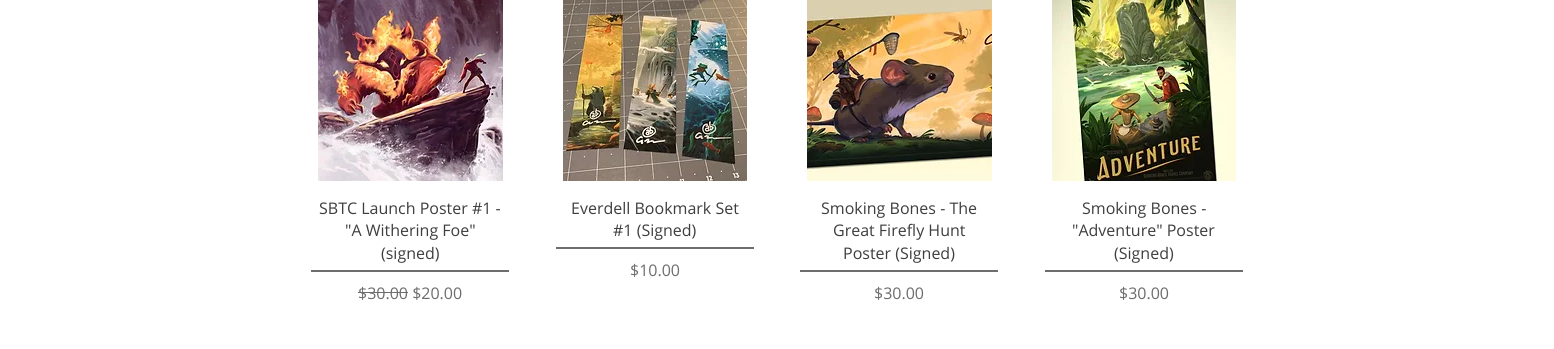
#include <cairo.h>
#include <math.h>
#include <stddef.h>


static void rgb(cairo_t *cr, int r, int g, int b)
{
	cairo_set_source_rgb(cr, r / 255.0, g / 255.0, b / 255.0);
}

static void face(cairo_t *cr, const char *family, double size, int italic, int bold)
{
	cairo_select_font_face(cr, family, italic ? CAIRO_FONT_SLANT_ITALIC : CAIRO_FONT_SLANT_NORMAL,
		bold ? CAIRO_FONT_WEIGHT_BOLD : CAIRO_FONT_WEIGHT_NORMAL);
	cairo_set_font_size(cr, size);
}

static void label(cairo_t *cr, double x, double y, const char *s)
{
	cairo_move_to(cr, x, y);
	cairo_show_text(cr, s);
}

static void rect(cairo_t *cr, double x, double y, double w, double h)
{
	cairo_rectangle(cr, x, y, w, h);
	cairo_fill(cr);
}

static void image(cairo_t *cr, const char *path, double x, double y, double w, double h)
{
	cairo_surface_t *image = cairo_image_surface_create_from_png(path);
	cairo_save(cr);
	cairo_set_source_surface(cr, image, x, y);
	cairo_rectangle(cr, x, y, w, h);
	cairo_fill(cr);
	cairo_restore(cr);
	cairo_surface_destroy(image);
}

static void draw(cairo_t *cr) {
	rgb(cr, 255, 255, 255);
	cairo_paint(cr);
	image(cr, "image0.png", 318, 0, 185, 181);
	face(cr, "Open Sans", 16, 0, 0);
	rgb(cr, 62, 62, 62);
	label(cr, 319, 214, "SBTC Launch Poster #1 -");
	label(cr, 345, 236, "\"A Withering Foe\"");
	label(cr, 381, 259, "(signed)");
	rgb(cr, 110, 108, 108);
	rect(cr, 311, 270, 198, 2);
	label(cr, 358, 299, "$30.00 $20.00");
	rect(cr, 358, 292, 50, 1);
	image(cr, "image1.png", 563, 0, 184, 181);
	rgb(cr, 62, 62, 62);
	label(cr, 571, 214, "Everdell Bookmark Set");
	label(cr, 613, 236, "#1 (Signed)");
	rgb(cr, 110, 108, 108);
	rect(cr, 556, 247, 198, 2);
	label(cr, 630, 276, "$10.00");
	image(cr, "image2.png", 807, 0, 185, 181);
	rgb(cr, 62, 62, 62);
	label(cr, 821, 214, "Smoking Bones - The");
	label(cr, 833, 236, "Great Firefly Hunt");
	label(cr, 843, 259, "Poster (Signed)");
	rgb(cr, 110, 108, 108);
	rect(cr, 800, 270, 198, 2);
	label(cr, 874, 299, "$30.00");
	image(cr, "image3.png", 1052, 0, 184, 181);
	rgb(cr, 62, 62, 62);
	label(cr, 1082, 214, "Smoking Bones -");
	label(cr, 1072, 236, "\"Adventure\" Poster");
	label(cr, 1114, 259, "(Signed)");
	rgb(cr, 110, 108, 108);
	rect(cr, 1045, 270, 198, 2);
	label(cr, 1119, 299, "$30.00");
}

int main(void) {
	cairo_surface_t *surface = cairo_image_surface_create(CAIRO_FORMAT_RGB24, 1554, 349);
	cairo_t *cr = cairo_create(surface);
	cairo_font_options_t *options = cairo_font_options_create();
	cairo_font_options_set_hint_metrics(options, CAIRO_HINT_METRICS_OFF);
	cairo_font_options_set_hint_style(options, CAIRO_HINT_STYLE_NONE);
	cairo_set_font_options(cr, options);
	cairo_set_miter_limit(cr, 4);
	draw(cr);
	cairo_surface_write_to_png(surface, "render.png");
	cairo_font_options_destroy(options);
	cairo_destroy(cr);
	cairo_surface_destroy(surface);
	return 0;
}
